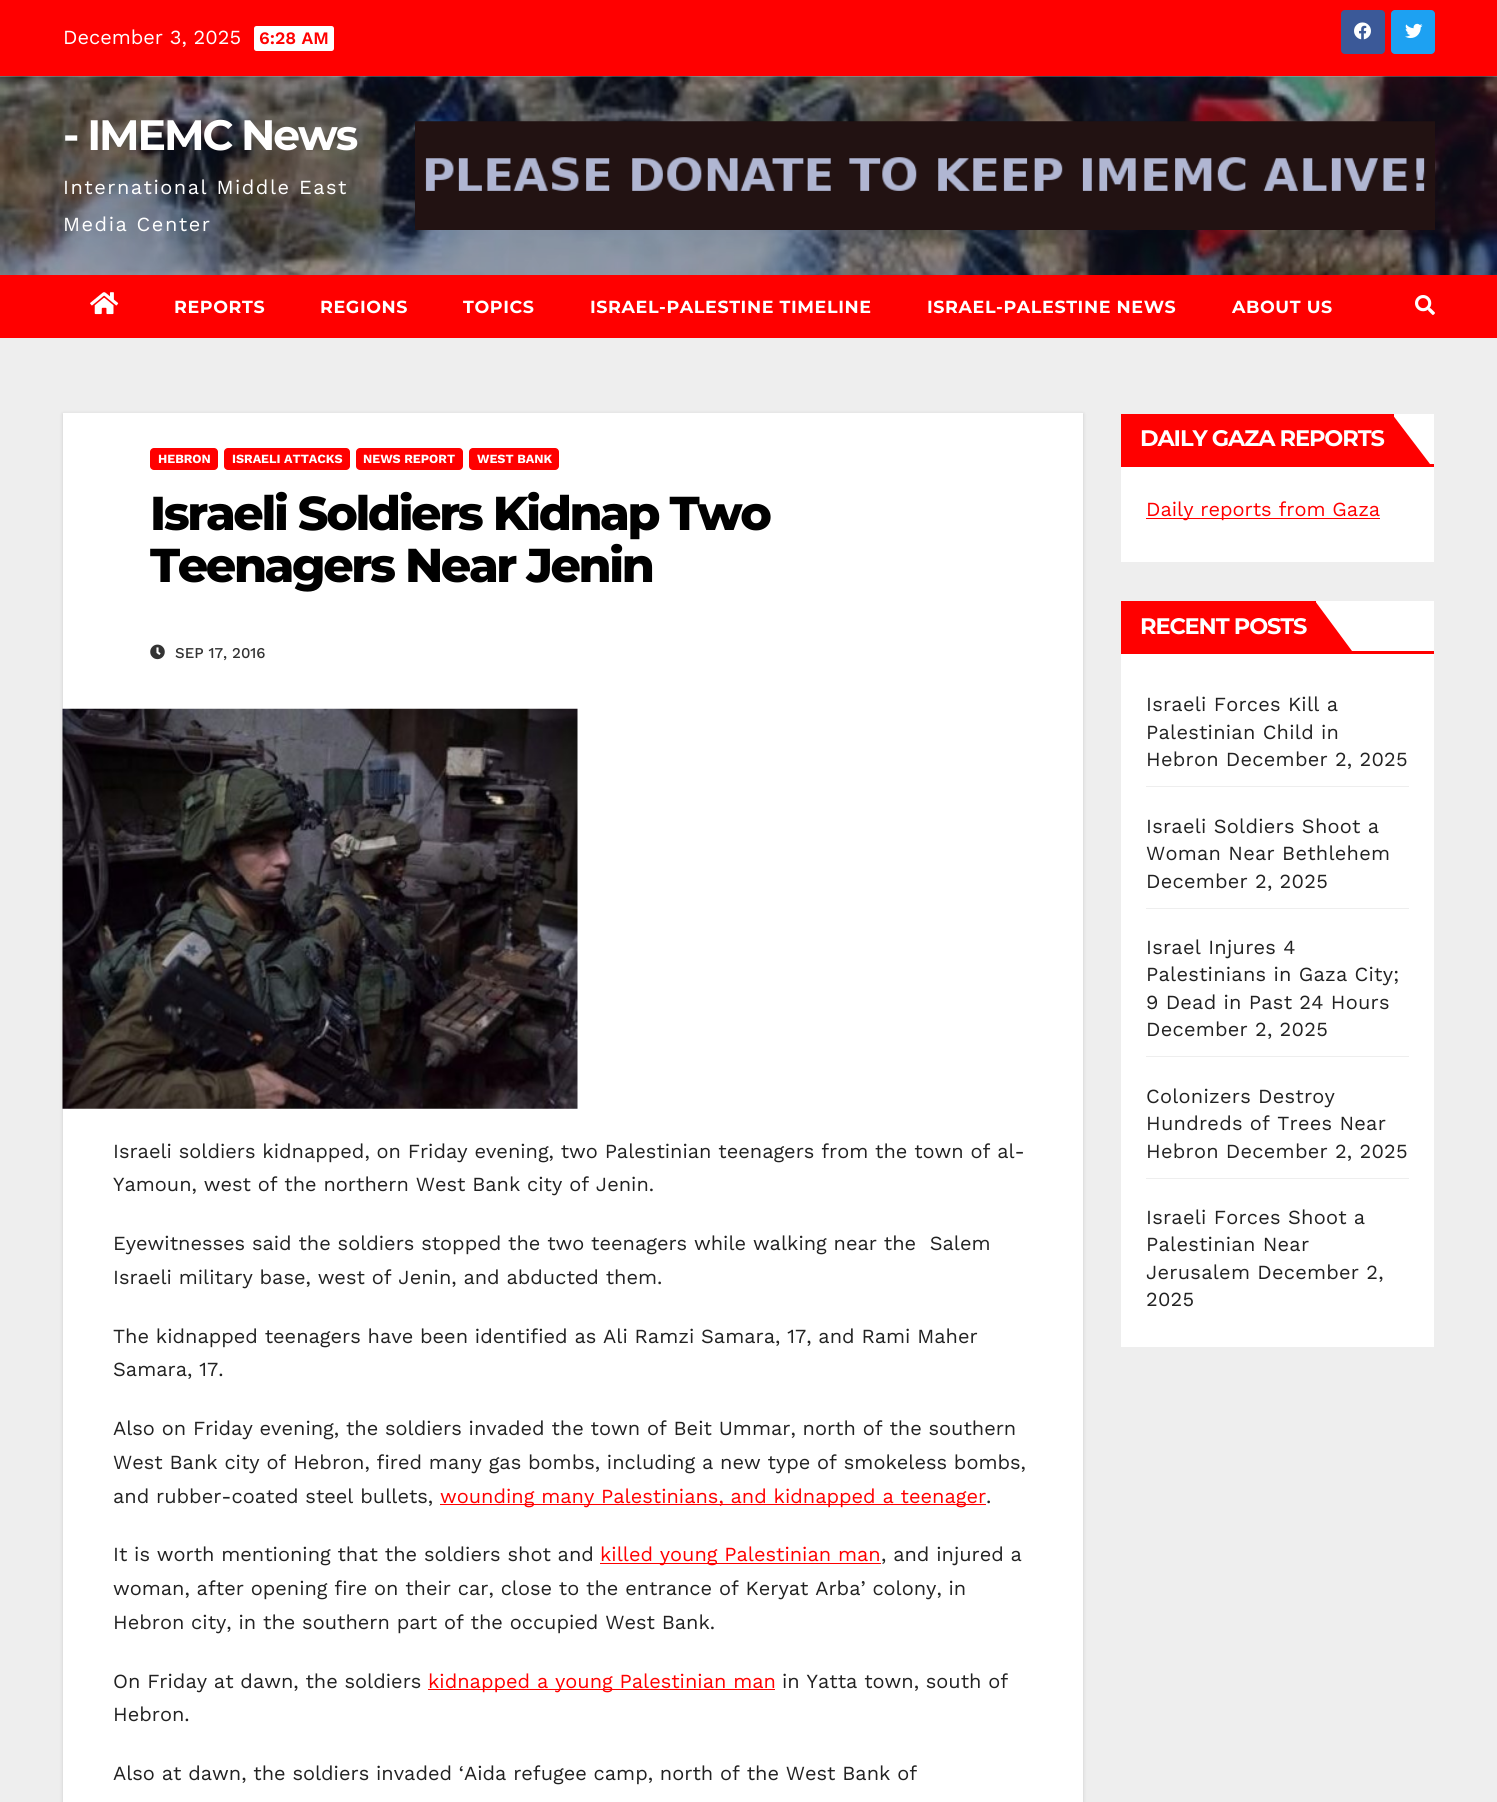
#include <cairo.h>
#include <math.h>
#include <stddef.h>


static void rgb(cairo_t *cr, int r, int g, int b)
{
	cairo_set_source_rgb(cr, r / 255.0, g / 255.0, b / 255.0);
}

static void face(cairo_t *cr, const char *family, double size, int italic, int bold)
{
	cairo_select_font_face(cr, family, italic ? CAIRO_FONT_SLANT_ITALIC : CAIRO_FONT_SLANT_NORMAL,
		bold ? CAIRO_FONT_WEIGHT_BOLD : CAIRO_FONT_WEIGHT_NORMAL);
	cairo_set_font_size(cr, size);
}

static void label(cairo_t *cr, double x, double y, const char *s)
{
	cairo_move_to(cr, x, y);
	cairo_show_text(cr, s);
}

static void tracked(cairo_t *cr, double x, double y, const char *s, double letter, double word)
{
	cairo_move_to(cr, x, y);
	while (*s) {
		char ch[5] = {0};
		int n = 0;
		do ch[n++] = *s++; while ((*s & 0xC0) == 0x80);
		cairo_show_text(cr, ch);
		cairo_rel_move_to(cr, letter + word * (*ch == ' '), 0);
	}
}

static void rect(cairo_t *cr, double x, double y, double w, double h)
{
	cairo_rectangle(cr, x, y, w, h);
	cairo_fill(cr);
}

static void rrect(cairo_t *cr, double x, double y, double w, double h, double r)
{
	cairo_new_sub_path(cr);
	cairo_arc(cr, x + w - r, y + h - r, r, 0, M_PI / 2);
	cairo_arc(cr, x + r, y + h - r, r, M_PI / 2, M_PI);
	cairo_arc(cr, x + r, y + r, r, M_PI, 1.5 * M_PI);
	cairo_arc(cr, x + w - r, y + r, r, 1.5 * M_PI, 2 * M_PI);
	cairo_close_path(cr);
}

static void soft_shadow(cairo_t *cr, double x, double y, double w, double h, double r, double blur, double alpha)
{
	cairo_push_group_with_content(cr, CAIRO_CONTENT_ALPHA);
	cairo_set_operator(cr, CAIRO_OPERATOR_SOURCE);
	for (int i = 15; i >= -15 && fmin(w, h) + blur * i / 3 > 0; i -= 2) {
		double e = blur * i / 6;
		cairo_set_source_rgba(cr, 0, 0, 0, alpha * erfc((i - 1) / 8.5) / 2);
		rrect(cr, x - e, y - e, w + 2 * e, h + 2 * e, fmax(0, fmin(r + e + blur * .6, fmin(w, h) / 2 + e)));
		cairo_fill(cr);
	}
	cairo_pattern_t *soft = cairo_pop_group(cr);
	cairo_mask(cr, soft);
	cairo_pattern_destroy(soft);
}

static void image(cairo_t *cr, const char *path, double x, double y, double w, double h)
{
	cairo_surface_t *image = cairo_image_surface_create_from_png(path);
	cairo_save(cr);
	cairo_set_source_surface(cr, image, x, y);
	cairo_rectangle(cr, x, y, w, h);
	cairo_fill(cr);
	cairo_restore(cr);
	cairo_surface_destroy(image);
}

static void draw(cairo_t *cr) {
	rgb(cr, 238, 238, 238);
	cairo_paint(cr);
	rgb(cr, 255, 0, 0);
	rect(cr, 0, 0, 1497, 76);
	face(cr, "Work Sans", 20, 0, 0);
	rgb(cr, 255, 255, 255);
	label(cr, 63, 44, "December 3, 2025");
	rrect(cr, 254, 26, 80, 25, 2.5);
	cairo_fill(cr);
	face(cr, "Work Sans SemiBold", 17.5, 0, 0);
	rgb(cr, 255, 0, 0);
	label(cr, 259, 44, "6:28 AM");
	rgb(cr, 59, 89, 152);
	rrect(cr, 1341, 10, 44, 44, 4);
	cairo_fill(cr);
	image(cr, "image0.png", 1354, 22, 17, 18);
	rgb(cr, 29, 161, 242);
	rrect(cr, 1391, 10, 44, 44, 4);
	cairo_fill(cr);
	image(cr, "image1.png", 1405, 23, 18, 16);
	image(cr, "image2.png", 0, 76, 1497, 199);
	face(cr, "Montserrat Thin", 42.5, 0, 0);
	rgb(cr, 255, 255, 255);
	tracked(cr, 63, 150, "- IMEMC News", -2.1, 0);
	face(cr, "Work Sans", 20, 0, 0);
	tracked(cr, 63, 194, "International Middle East", 1.5, 0);
	tracked(cr, 63, 231, "Media Center", 1.5, 0);
	image(cr, "image3.png", 415, 121, 1020, 109);
	rgb(cr, 255, 0, 0);
	rect(cr, 0, 275, 1497, 63);
	image(cr, "image4.png", 90, 292, 29, 23);
	face(cr, "Montserrat Thin", 17.5, 0, 0);
	rgb(cr, 255, 255, 255);
	tracked(cr, 174, 313, "REPORTS", 0.6, 0);
	tracked(cr, 320, 313, "REGIONS", 0.6, 0);
	tracked(cr, 463, 313, "TOPICS", 0.6, 0);
	tracked(cr, 590, 313, "ISRAEL-PALESTINE TIMELINE", 0.6, 0);
	tracked(cr, 927, 313, "ISRAEL-PALESTINE NEWS", 0.6, 0);
	tracked(cr, 1232, 313, "ABOUT US", 0.6, 0);
	image(cr, "image5.png", 1415, 295, 20, 20);
	rgb(cr, 0, 0, 0);
	soft_shadow(cr, 63, 414, 1020, 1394, 0, 2, 0.15);
	rgb(cr, 255, 255, 255);
	rect(cr, 63, 413, 1020, 1389);
	rgb(cr, 255, 0, 0);
	rrect(cr, 150, 448, 68, 22, 4);
	cairo_fill(cr);
	face(cr, "Work Sans", 12.5, 0, 1);
	rgb(cr, 255, 255, 255);
	label(cr, 158, 463, "HEBRON");
	rgb(cr, 255, 0, 0);
	rrect(cr, 224, 448, 126, 22, 4);
	cairo_fill(cr);
	rgb(cr, 255, 255, 255);
	label(cr, 232, 463, "ISRAELI ATTACKS");
	rgb(cr, 255, 0, 0);
	rrect(cr, 356, 448, 107, 22, 4);
	cairo_fill(cr);
	rgb(cr, 255, 255, 255);
	label(cr, 363, 463, "NEWS REPORT");
	rgb(cr, 255, 0, 0);
	rrect(cr, 469, 448, 90, 22, 4);
	cairo_fill(cr);
	rgb(cr, 255, 255, 255);
	label(cr, 477, 463, "WEST BANK");
	face(cr, "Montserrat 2 Thin", 47.5, 0, 0);
	rgb(cr, 0, 0, 0);
	tracked(cr, 150, 530, "Israeli Soldiers Kidnap Two", -2.4, 0);
	tracked(cr, 150, 582, "Teenagers Near Jenin", -2.4, 0);
	image(cr, "image6.png", 150, 644, 15, 16);
	face(cr, "Work Sans Medium", 15, 0, 0);
	rgb(cr, 51, 51, 51);
	label(cr, 175, 658, "SEP 17, 2016");
	image(cr, "image7.png", 62, 708, 516, 401);
	face(cr, "Work Sans", 20, 0, 0);
	rgb(cr, 34, 34, 34);
	label(cr, 113, 1158, "Israeli soldiers kidnapped, on Friday evening, two Palestinian teenagers from the town of al-");
	label(cr, 113, 1191, "Yamoun, west of the northern West Bank city of Jenin.");
	label(cr, 113, 1250, "Eyewitnesses said the soldiers stopped the two teenagers while walking near the  Salem");
	label(cr, 113, 1284, "Israeli military base, west of Jenin, and abducted them.");
	label(cr, 113, 1343, "The kidnapped teenagers have been identified as Ali Ramzi Samara, 17, and Rami Maher");
	label(cr, 113, 1376, "Samara, 17.");
	label(cr, 113, 1435, "Also on Friday evening, the soldiers invaded the town of Beit Ummar, north of the southern");
	label(cr, 113, 1469, "West Bank city of Hebron, fired many gas bombs, including a new type of smokeless bombs,");
	label(cr, 113, 1503, "and rubber-coated steel bullets,");
	rgb(cr, 255, 0, 0);
	rect(cr, 440, 1504, 546, 1);
	label(cr, 440, 1503, "wounding many Palestinians, and kidnapped a teenager");
	rgb(cr, 34, 34, 34);
	label(cr, 986, 1503, ".");
	label(cr, 113, 1561, "It is worth mentioning that the soldiers shot and");
	rgb(cr, 255, 0, 0);
	rect(cr, 600, 1563, 281, 1);
	label(cr, 600, 1561, "killed young Palestinian man");
	rgb(cr, 34, 34, 34);
	label(cr, 881, 1561, ", and injured a");
	label(cr, 113, 1595, "woman, after opening fire on their car, close to the entrance of Keryat Arba’ colony, in");
	label(cr, 113, 1629, "Hebron city, in the southern part of the occupied West Bank.");
	label(cr, 113, 1688, "On Friday at dawn, the soldiers");
	rgb(cr, 255, 0, 0);
	rect(cr, 428, 1689, 347, 1);
	label(cr, 428, 1688, "kidnapped a young Palestinian man");
	rgb(cr, 34, 34, 34);
	label(cr, 782, 1688, "in Yatta town, south of");
	label(cr, 113, 1721, "Hebron.");
	label(cr, 113, 1780, "Also at dawn, the soldiers invaded ‘Aida refugee camp, north of the West Bank of");
	rgb(cr, 255, 255, 255);
	rect(cr, 1121, 414, 313, 148);
	rgb(cr, 255, 0, 0);
	rect(cr, 1121, 464, 313, 3);
	rect(cr, 1121, 414, 273, 50);
	face(cr, "Montserrat Thin", 22.5, 0, 0);
	rgb(cr, 255, 255, 255);
	tracked(cr, 1140, 446, "DAILY GAZA REPORTS", -1.1, 0);
	rgb(cr, 255, 0, 0);
	cairo_new_path(cr);
	cairo_move_to(cr, 1392, 464);
	cairo_line_to(cr, 1392, 414);
	cairo_line_to(cr, 1430, 464);
	cairo_close_path(cr);
	cairo_fill(cr);
	rect(cr, 1146, 518, 234, 1);
	face(cr, "Work Sans", 20, 0, 0);
	label(cr, 1146, 516, "Daily reports from Gaza");
	rgb(cr, 255, 255, 255);
	rect(cr, 1121, 601, 313, 746);
	rgb(cr, 255, 0, 0);
	rect(cr, 1121, 651, 313, 3);
	rect(cr, 1121, 601, 195, 50);
	face(cr, "Montserrat Thin", 22.5, 0, 0);
	rgb(cr, 255, 255, 255);
	tracked(cr, 1140, 634, "RECENT POSTS", -1.1, 0);
	rgb(cr, 255, 0, 0);
	cairo_new_path(cr);
	cairo_move_to(cr, 1315, 651);
	cairo_line_to(cr, 1315, 601);
	cairo_line_to(cr, 1352, 651);
	cairo_close_path(cr);
	cairo_fill(cr);
	rgb(cr, 238, 238, 238);
	rect(cr, 1146, 786, 263, 1);
	face(cr, "Work Sans", 20, 0, 0);
	rgb(cr, 34, 34, 34);
	tracked(cr, 1146, 711, "Israeli Forces Kill a", 0.25, 0);
	tracked(cr, 1146, 739, "Palestinian Child in", 0.25, 0);
	tracked(cr, 1146, 766, "Hebron December 2, 2025", 0.25, 0);
	rgb(cr, 238, 238, 238);
	rect(cr, 1146, 908, 263, 1);
	rgb(cr, 34, 34, 34);
	tracked(cr, 1146, 833, "Israeli Soldiers Shoot a", 0.25, 0);
	tracked(cr, 1146, 860, "Woman Near Bethlehem", 0.25, 0);
	tracked(cr, 1146, 888, "December 2, 2025", 0.25, 0);
	rgb(cr, 238, 238, 238);
	rect(cr, 1146, 1056, 263, 1);
	rgb(cr, 34, 34, 34);
	tracked(cr, 1146, 954, "Israel Injures 4", 0.25, 0);
	tracked(cr, 1146, 981, "Palestinians in Gaza City;", 0.25, 0);
	tracked(cr, 1146, 1009, "9 Dead in Past 24 Hours", 0.25, 0);
	tracked(cr, 1146, 1036, "December 2, 2025", 0.25, 0);
	rgb(cr, 238, 238, 238);
	rect(cr, 1146, 1178, 263, 1);
	rgb(cr, 34, 34, 34);
	tracked(cr, 1146, 1103, "Colonizers Destroy", 0.25, 0);
	tracked(cr, 1146, 1130, "Hundreds of Trees Near", 0.25, 0);
	tracked(cr, 1146, 1158, "Hebron December 2, 2025", 0.25, 0);
	tracked(cr, 1146, 1224, "Israeli Forces Shoot a", 0.25, 0);
	tracked(cr, 1146, 1251, "Palestinian Near", 0.25, 0);
	tracked(cr, 1146, 1279, "Jerusalem December 2,", 0.25, 0);
	tracked(cr, 1146, 1306, "2025", 0.25, 0);
}

int main(void) {
	cairo_surface_t *surface = cairo_image_surface_create(CAIRO_FORMAT_RGB24, 1497, 1802);
	cairo_t *cr = cairo_create(surface);
	cairo_font_options_t *options = cairo_font_options_create();
	cairo_font_options_set_hint_metrics(options, CAIRO_HINT_METRICS_OFF);
	cairo_font_options_set_hint_style(options, CAIRO_HINT_STYLE_NONE);
	cairo_set_font_options(cr, options);
	cairo_set_miter_limit(cr, 4);
	draw(cr);
	cairo_surface_write_to_png(surface, "render.png");
	cairo_font_options_destroy(options);
	cairo_destroy(cr);
	cairo_surface_destroy(surface);
	return 0;
}
